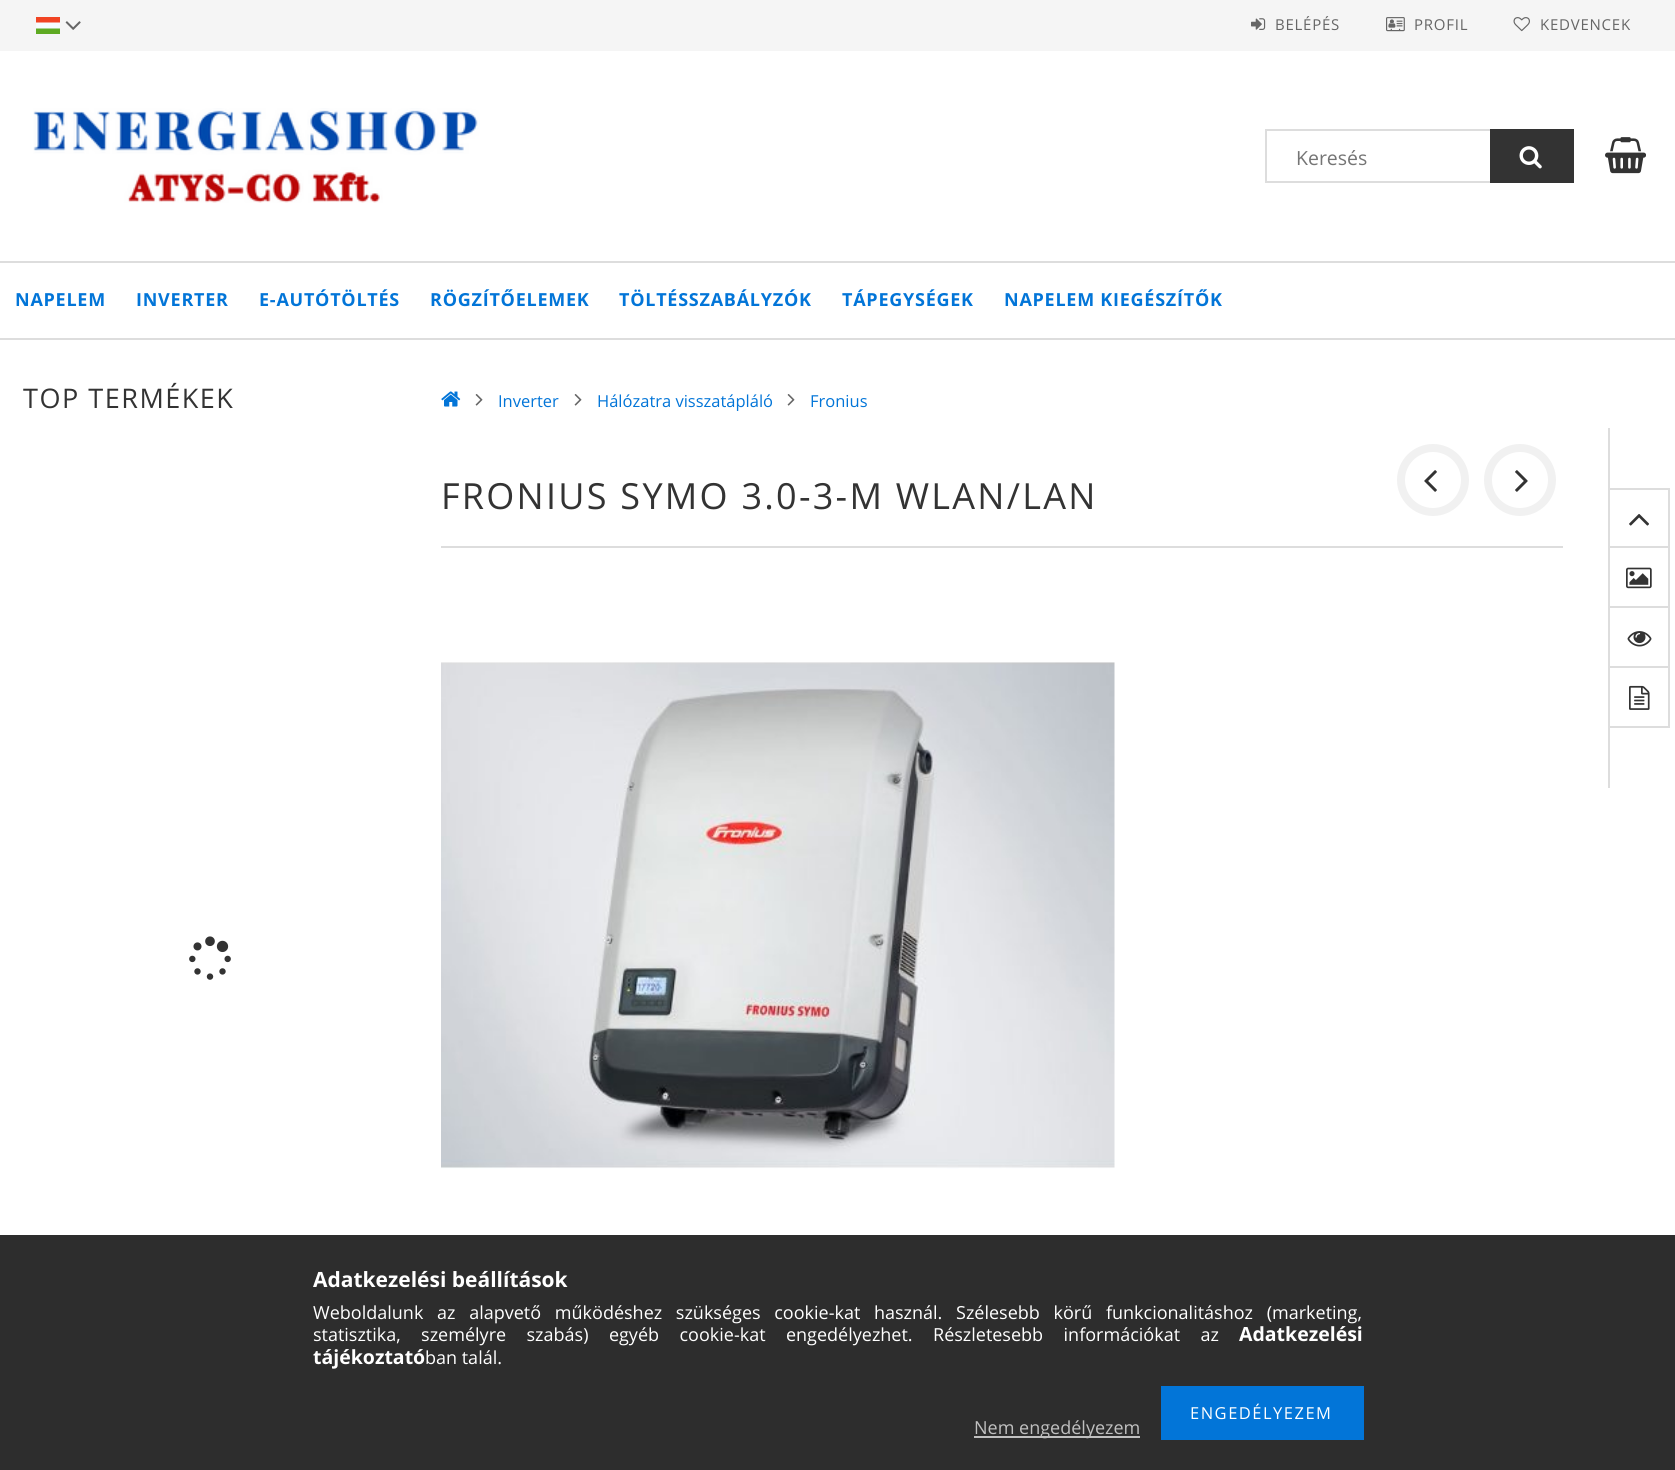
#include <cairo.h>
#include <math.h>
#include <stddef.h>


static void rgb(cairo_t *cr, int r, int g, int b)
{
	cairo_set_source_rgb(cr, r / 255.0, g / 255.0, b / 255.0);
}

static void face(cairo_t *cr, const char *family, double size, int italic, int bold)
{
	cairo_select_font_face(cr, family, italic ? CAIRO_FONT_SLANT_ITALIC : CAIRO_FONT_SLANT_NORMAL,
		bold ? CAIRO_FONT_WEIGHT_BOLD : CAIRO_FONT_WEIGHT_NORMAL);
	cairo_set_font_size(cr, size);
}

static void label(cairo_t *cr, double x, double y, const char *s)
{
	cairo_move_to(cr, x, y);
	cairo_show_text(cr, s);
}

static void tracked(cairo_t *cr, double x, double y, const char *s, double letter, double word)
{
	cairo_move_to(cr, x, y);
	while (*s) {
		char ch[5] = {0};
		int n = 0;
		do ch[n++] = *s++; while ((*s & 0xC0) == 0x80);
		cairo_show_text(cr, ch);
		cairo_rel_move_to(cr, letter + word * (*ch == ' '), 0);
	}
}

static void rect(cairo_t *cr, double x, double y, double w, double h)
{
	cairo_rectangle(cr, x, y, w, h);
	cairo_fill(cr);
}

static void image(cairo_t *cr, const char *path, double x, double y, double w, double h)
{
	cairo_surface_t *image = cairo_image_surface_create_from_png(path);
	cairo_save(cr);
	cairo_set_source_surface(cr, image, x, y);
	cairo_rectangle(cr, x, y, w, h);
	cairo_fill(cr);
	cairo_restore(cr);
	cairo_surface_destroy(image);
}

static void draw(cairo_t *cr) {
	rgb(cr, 255, 255, 255);
	cairo_paint(cr);
	rgb(cr, 45, 45, 45);
	rect(cr, 0, 1235, 1675, 235);
	rgb(cr, 245, 245, 245);
	rect(cr, 0, 0, 1675, 51);
	image(cr, "image0.png", 36, 17, 24, 17);
	image(cr, "image1.png", 65, 21, 16, 9);
	image(cr, "image2.png", 1251, 18, 15, 12);
	face(cr, "Open Sans", 15, 0, 0);
	rgb(cr, 102, 102, 102);
	tracked(cr, 1275, 30, "BELÉPÉS", 0.75, 0);
	image(cr, "image3.png", 1386, 17, 19, 15);
	tracked(cr, 1414, 30, "PROFIL", 0.75, 0);
	image(cr, "image4.png", 1513, 17, 17, 15);
	tracked(cr, 1540, 30, "KEDVENCEK", 0.75, 0);
	image(cr, "image5.png", 33, 108, 447, 95);
	cairo_rectangle(cr, 1266, 130, 307, 52);
	rgb(cr, 221, 221, 221);
	cairo_stroke(cr);
	face(cr, "Open Sans", 19.5, 0, 0);
	rgb(cr, 117, 117, 117);
	label(cr, 1296, 165, "Keresés");
	rgb(cr, 51, 51, 51);
	rect(cr, 1490, 129, 84, 54);
	image(cr, "image6.png", 1519, 146, 23, 23);
	image(cr, "image7.png", 1605, 137, 41, 37);
	rgb(cr, 221, 221, 221);
	rect(cr, 0, 261, 1675, 2);
	rect(cr, 0, 338, 1675, 2);
	face(cr, "Open Sans", 18, 0, 1);
	rgb(cr, 2, 117, 216);
	tracked(cr, 15, 306, "NAPELEM", 0.75, 0);
	tracked(cr, 136, 306, "INVERTER", 0.75, 0);
	tracked(cr, 259, 306, "E-AUTÓTÖLTÉS", 0.75, 0);
	tracked(cr, 430, 306, "RÖGZÍTŐELEMEK", 0.75, 0);
	tracked(cr, 619, 306, "TÖLTÉSSZABÁLYZÓK", 0.75, 0);
	tracked(cr, 842, 306, "TÁPEGYSÉGEK", 0.75, 0);
	tracked(cr, 1004, 306, "NAPELEM KIEGÉSZÍTŐK", 0.75, 0);
	face(cr, "Open Sans", 27, 0, 0);
	rgb(cr, 51, 51, 51);
	tracked(cr, 23, 408, "TOP TERMÉKEK", 1.5, 0);
	image(cr, "image8.png", 189, 936, 42, 44);
	image(cr, "image9.png", 441, 391, 20, 16);
	image(cr, "image10.png", 475, 394, 8, 12);
	face(cr, "Open Sans", 16.5, 0, 0);
	rgb(cr, 2, 117, 216);
	label(cr, 498, 407, "Inverter");
	image(cr, "image10.png", 574, 394, 8, 12);
	label(cr, 597, 407, "Hálózatra visszatápláló");
	image(cr, "image10.png", 787, 394, 8, 12);
	label(cr, 810, 407, "Fronius");
	rgb(cr, 221, 221, 221);
	rect(cr, 441, 546, 1122, 2);
	face(cr, "Open Sans", 36, 0, 0);
	rgb(cr, 51, 51, 51);
	tracked(cr, 441, 509, "FRONIUS SYMO 3.0-3-M WLAN/LAN", 2.25, 0);
	cairo_new_path(cr);
	cairo_arc(cr, 1433, 480, 32, 0, 2 * M_PI);
	rgb(cr, 241, 241, 241);
	cairo_set_line_width(cr, 8);
	cairo_stroke(cr);
	image(cr, "image11.png", 1424, 470, 13, 22);
	cairo_arc(cr, 1520, 480, 32, 0, 2 * M_PI);
	cairo_stroke(cr);
	image(cr, "image12.png", 1515, 470, 13, 22);
	image(cr, "image13.png", 441, 662, 674, 507);
	rgb(cr, 221, 221, 221);
	rect(cr, 1608, 428, 2, 360);
	rect(cr, 1610, 488, 60, 2);
	rect(cr, 1668, 488, 2, 240);
	rect(cr, 1610, 546, 60, 2);
	image(cr, "image14.png", 1629, 514, 20, 12);
	rect(cr, 1610, 606, 60, 2);
	image(cr, "image15.png", 1626, 567, 26, 22);
	rect(cr, 1610, 666, 60, 2);
	image(cr, "image16.png", 1627, 631, 25, 16);
	rect(cr, 1610, 726, 60, 2);
	image(cr, "image17.png", 1629, 685, 21, 25);
	face(cr, "Open Sans", 21, 0, 1);
	rgb(cr, 255, 255, 255);
	label(cr, 313, 1287, "Adatkezelési beállítások");
	face(cr, "Open Sans", 18, 0, 0);
	tracked(cr, 313, 1319, "Weboldalunk az alapvető működéshez szükséges cookie-kat használ. Szélesebb körű funkcionalitáshoz (marketing,", 0, 9);
	tracked(cr, 313, 1341, "statisztika, személyre szabás) egyéb cookie-kat engedélyezhet. Részletesebb információkat az", 0, 15.75);
	face(cr, "Open Sans", 19.5, 0, 1);
	label(cr, 1239, 1341, "Adatkezelési");
	label(cr, 313, 1364, "tájékoztató");
	face(cr, "Open Sans", 18, 0, 0);
	label(cr, 425, 1364, "ban talál.");
	rgb(cr, 2, 117, 216);
	rect(cr, 1161, 1386, 203, 54);
	face(cr, "Open Sans", 16.5, 0, 0);
	rgb(cr, 255, 255, 255);
	tracked(cr, 1190, 1419, "ENGEDÉLYEZEM", 1.5, 0);
	rgb(cr, 192, 192, 192);
	rect(cr, 974, 1436, 166, 2);
	face(cr, "Open Sans", 18, 0, 0);
	label(cr, 974, 1434, "Nem engedélyezem");
}

int main(void) {
	cairo_surface_t *surface = cairo_image_surface_create(CAIRO_FORMAT_RGB24, 1675, 1470);
	cairo_t *cr = cairo_create(surface);
	cairo_font_options_t *options = cairo_font_options_create();
	cairo_font_options_set_hint_metrics(options, CAIRO_HINT_METRICS_OFF);
	cairo_font_options_set_hint_style(options, CAIRO_HINT_STYLE_NONE);
	cairo_set_font_options(cr, options);
	cairo_set_miter_limit(cr, 4);
	draw(cr);
	cairo_surface_write_to_png(surface, "render.png");
	cairo_font_options_destroy(options);
	cairo_destroy(cr);
	cairo_surface_destroy(surface);
	return 0;
}
